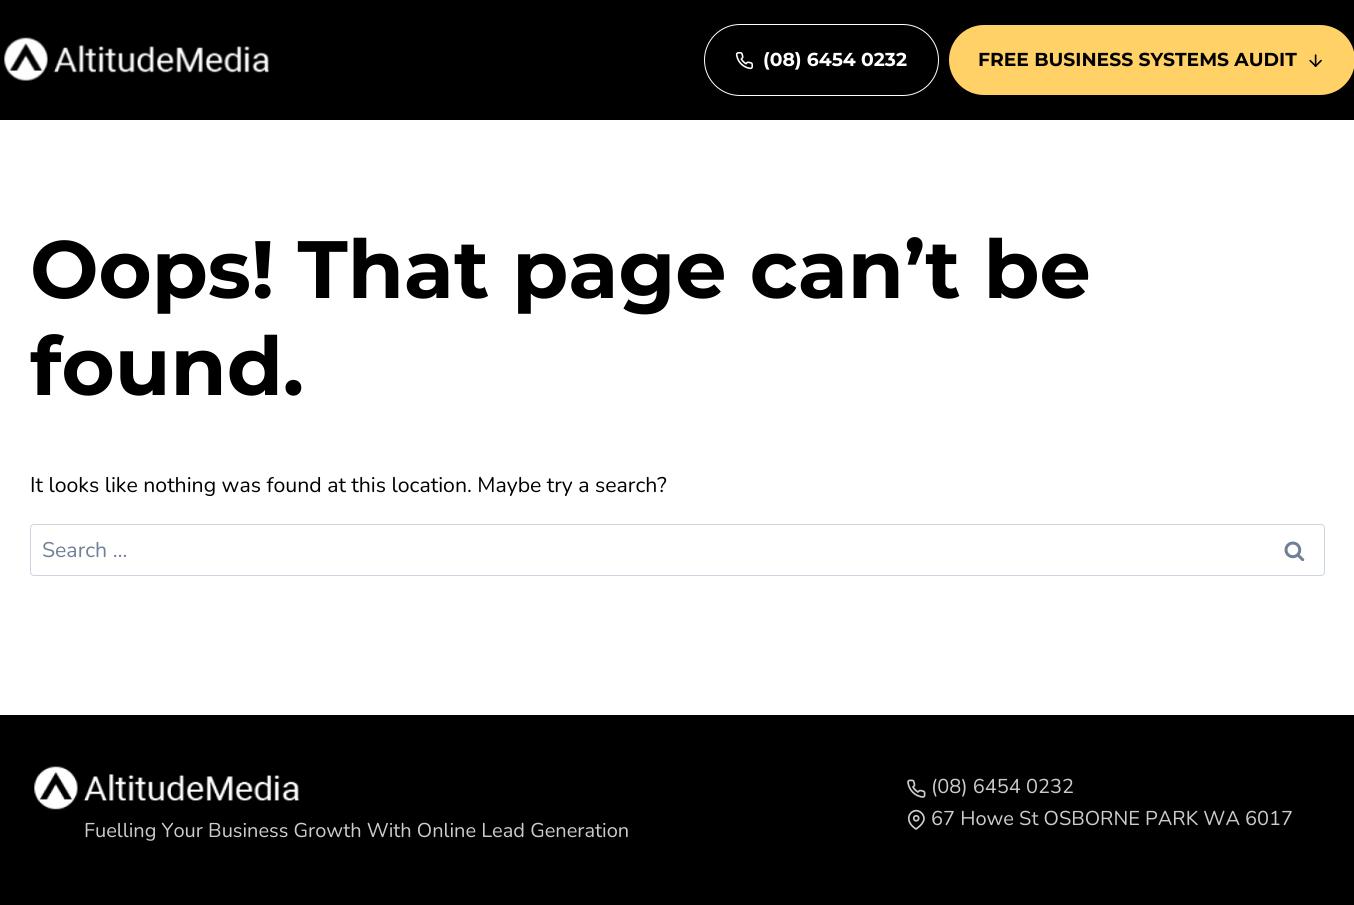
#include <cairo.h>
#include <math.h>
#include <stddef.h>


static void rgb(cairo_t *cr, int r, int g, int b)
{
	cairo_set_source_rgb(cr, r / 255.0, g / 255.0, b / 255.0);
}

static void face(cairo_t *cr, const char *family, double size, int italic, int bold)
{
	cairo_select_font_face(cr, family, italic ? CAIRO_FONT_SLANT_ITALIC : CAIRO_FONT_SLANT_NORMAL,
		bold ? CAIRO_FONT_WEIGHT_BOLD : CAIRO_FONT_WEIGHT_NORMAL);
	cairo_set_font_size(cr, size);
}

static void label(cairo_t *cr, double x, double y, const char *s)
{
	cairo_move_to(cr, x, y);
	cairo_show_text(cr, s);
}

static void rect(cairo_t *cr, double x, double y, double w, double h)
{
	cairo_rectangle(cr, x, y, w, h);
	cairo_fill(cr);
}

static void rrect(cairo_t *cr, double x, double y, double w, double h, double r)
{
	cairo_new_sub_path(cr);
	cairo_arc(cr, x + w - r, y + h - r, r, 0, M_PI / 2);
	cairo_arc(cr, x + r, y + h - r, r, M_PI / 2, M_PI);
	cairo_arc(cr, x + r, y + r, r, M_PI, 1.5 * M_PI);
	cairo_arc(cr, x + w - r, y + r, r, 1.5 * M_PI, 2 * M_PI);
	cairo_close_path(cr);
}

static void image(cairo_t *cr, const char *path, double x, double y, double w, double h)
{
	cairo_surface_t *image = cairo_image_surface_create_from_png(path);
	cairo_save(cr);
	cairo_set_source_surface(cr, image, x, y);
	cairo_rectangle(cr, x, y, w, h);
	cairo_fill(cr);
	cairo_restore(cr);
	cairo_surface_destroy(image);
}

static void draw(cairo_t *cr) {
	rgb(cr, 255, 255, 255);
	cairo_paint(cr);
	rgb(cr, 0, 0, 0);
	rect(cr, 0, 0, 1354, 120);
	image(cr, "image0.png", 4, 37, 266, 44);
	rrect(cr, 704.5, 24.5, 234, 71, 35.5);
	rgb(cr, 255, 255, 255);
	cairo_set_line_width(cr, 1);
	cairo_stroke(cr);
	image(cr, "image1.png", 735, 52, 18, 18);
	face(cr, "Montserrat Thin", 18.75, 0, 0);
	label(cr, 763, 66, "(08) 6454 0232");
	rgb(cr, 255, 209, 102);
	rrect(cr, 949, 25, 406, 70, 35);
	cairo_fill(cr);
	rgb(cr, 0, 0, 0);
	label(cr, 978, 66, "FREE BUSINESS SYSTEMS AUDIT");
	image(cr, "image2.png", 1309, 54, 13, 13);
	face(cr, "Montserrat Thin", 81.25, 0, 0);
	label(cr, 30, 298, "Oops! That page can’t be");
	label(cr, 30, 395, "found.");
	face(cr, "Nunito", 21.25, 0, 0);
	label(cr, 30, 492, "It looks like nothing was found at this location. Maybe try a search?");
	rrect(cr, 30.5, 524.5, 1294, 51, 3.5);
	rgb(cr, 203, 213, 224);
	cairo_stroke(cr);
	rgb(cr, 113, 128, 150);
	label(cr, 42, 557, "Search …");
	image(cr, "image3.png", 1284, 541, 21, 20);
	rgb(cr, 0, 0, 0);
	rect(cr, 0, 715, 1354, 190);
	image(cr, "image4.png", 907, 779, 19, 19);
	face(cr, "Nunito", 20, 0, 0);
	rgb(cr, 204, 204, 204);
	label(cr, 931, 793, "(08) 6454 0232");
	cairo_new_path(cr);
	cairo_move_to(cr, 924, 818.5);
	cairo_curve_to(cr, 924, 824, 916, 829, 916, 829);
	cairo_curve_to(cr, 900.5, 819, 913.5, 805, 921.5, 813);
	cairo_curve_to(cr, 923, 814.5, 924, 816.5, 924, 818.5);
	cairo_close_path(cr);
	cairo_set_line_width(cr, 1.7);
	cairo_set_line_cap(cr, CAIRO_LINE_CAP_ROUND);
	cairo_set_line_join(cr, CAIRO_LINE_JOIN_ROUND);
	cairo_stroke(cr);
	cairo_arc(cr, 916.2, 818.3, 2.5, 0, 2 * M_PI);
	cairo_set_line_cap(cr, CAIRO_LINE_CAP_BUTT);
	cairo_set_line_join(cr, CAIRO_LINE_JOIN_MITER);
	cairo_stroke(cr);
	label(cr, 931, 825, "67 Howe St OSBORNE PARK WA 6017");
	image(cr, "image5.png", 34, 766, 266, 44);
	label(cr, 84, 837, "Fuelling Your Business Growth With Online Lead Generation");
}

int main(void) {
	cairo_surface_t *surface = cairo_image_surface_create(CAIRO_FORMAT_RGB24, 1354, 905);
	cairo_t *cr = cairo_create(surface);
	cairo_font_options_t *options = cairo_font_options_create();
	cairo_font_options_set_hint_metrics(options, CAIRO_HINT_METRICS_OFF);
	cairo_font_options_set_hint_style(options, CAIRO_HINT_STYLE_NONE);
	cairo_set_font_options(cr, options);
	cairo_set_miter_limit(cr, 4);
	draw(cr);
	cairo_surface_write_to_png(surface, "render.png");
	cairo_font_options_destroy(options);
	cairo_destroy(cr);
	cairo_surface_destroy(surface);
	return 0;
}
